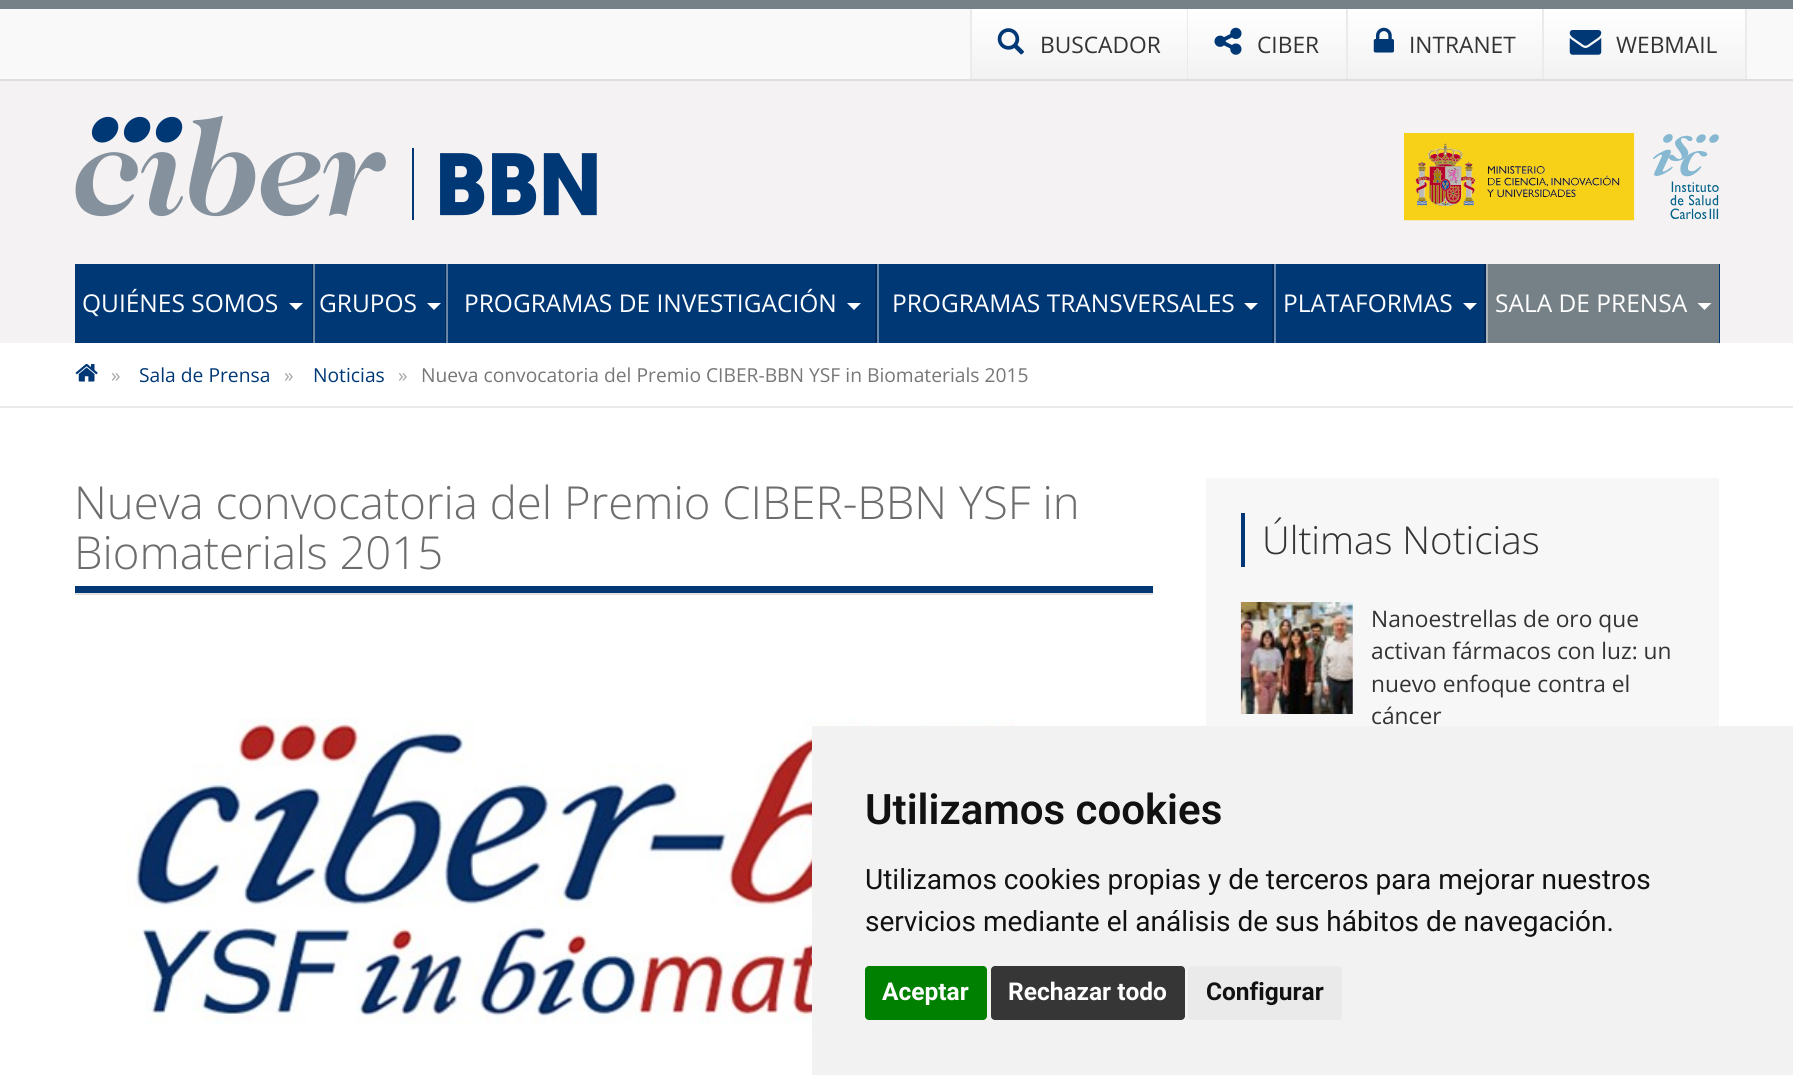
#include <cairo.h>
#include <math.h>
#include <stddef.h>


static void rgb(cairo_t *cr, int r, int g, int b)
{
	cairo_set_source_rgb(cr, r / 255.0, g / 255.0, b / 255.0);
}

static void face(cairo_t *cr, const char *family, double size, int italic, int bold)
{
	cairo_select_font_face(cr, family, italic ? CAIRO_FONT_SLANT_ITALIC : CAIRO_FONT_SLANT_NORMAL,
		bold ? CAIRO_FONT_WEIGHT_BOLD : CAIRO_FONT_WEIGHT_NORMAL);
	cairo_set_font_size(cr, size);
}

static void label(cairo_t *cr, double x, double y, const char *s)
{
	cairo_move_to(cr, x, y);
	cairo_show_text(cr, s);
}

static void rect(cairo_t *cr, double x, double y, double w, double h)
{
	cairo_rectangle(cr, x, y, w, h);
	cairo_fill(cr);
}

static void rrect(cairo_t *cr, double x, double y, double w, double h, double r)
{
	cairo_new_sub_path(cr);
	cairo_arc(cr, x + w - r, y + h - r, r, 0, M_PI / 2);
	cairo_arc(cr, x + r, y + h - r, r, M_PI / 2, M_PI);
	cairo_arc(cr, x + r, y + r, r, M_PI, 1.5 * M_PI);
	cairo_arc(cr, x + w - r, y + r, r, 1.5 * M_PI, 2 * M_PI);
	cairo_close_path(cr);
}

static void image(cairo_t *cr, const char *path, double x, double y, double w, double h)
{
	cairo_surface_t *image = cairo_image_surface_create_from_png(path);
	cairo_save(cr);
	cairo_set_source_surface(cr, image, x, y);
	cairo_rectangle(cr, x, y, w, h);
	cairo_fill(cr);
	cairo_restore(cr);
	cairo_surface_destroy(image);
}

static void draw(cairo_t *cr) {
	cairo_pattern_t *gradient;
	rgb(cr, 255, 255, 255);
	cairo_paint(cr);
	rgb(cr, 249, 249, 249);
	rect(cr, 0, 9, 1793, 70);
	rgb(cr, 118, 129, 135);
	rect(cr, 0, 0, 1793, 9);
	rgb(cr, 221, 221, 221);
	rect(cr, 0, 79, 1793, 2);
	gradient = cairo_pattern_create_linear(1079, 9, 1079, 79);
	cairo_pattern_add_color_stop_rgba(gradient, 0, 1, 1, 1, 1);
	cairo_pattern_add_color_stop_rgba(gradient, 1, 0.949, 0.949, 0.949, 1);
	cairo_set_source(cr, gradient);
	cairo_pattern_destroy(gradient);
	rect(cr, 972, 9, 215, 70);
	rgb(cr, 235, 235, 235);
	rect(cr, 1187, 9, 1, 70);
	rect(cr, 970, 9, 2, 70);
	image(cr, "image0.png", 997, 28, 27, 27);
	face(cr, "Open Sans", 22.75, 0, 0);
	rgb(cr, 51, 51, 51);
	label(cr, 1040, 53, "BUSCADOR");
	gradient = cairo_pattern_create_linear(1267, 9, 1267, 79);
	cairo_pattern_add_color_stop_rgba(gradient, 0, 1, 1, 1, 1);
	cairo_pattern_add_color_stop_rgba(gradient, 1, 0.949, 0.949, 0.949, 1);
	cairo_set_source(cr, gradient);
	cairo_pattern_destroy(gradient);
	rect(cr, 1188, 9, 158, 70);
	rgb(cr, 235, 235, 235);
	rect(cr, 1346, 9, 2, 70);
	image(cr, "image1.png", 1214, 27, 28, 28);
	rgb(cr, 51, 51, 51);
	label(cr, 1257, 53, "CIBER");
	gradient = cairo_pattern_create_linear(1445, 9, 1445, 79);
	cairo_pattern_add_color_stop_rgba(gradient, 0, 1, 1, 1, 1);
	cairo_pattern_add_color_stop_rgba(gradient, 1, 0.949, 0.949, 0.949, 1);
	cairo_set_source(cr, gradient);
	cairo_pattern_destroy(gradient);
	rect(cr, 1348, 9, 194, 70);
	rgb(cr, 235, 235, 235);
	rect(cr, 1542, 9, 2, 70);
	image(cr, "image2.png", 1373, 27, 21, 26);
	rgb(cr, 51, 51, 51);
	label(cr, 1409, 53, "INTRANET");
	gradient = cairo_pattern_create_linear(1644, 9, 1644, 79);
	cairo_pattern_add_color_stop_rgba(gradient, 0, 1, 1, 1, 1);
	cairo_pattern_add_color_stop_rgba(gradient, 1, 0.949, 0.949, 0.949, 1);
	cairo_set_source(cr, gradient);
	cairo_pattern_destroy(gradient);
	rect(cr, 1544, 9, 201, 70);
	rgb(cr, 235, 235, 235);
	rect(cr, 1745, 9, 2, 70);
	image(cr, "image3.png", 1569, 30, 33, 25);
	rgb(cr, 51, 51, 51);
	label(cr, 1616, 53, "WEBMAIL");
	rgb(cr, 244, 242, 242);
	rect(cr, 0, 81, 1793, 262);
	image(cr, "image4.png", 75, 116, 522, 104);
	image(cr, "image5.png", 1404, 133, 315, 88);
	rgb(cr, 0, 56, 118);
	rect(cr, 75, 264, 1645, 79);
	rgb(cr, 102, 136, 173);
	rect(cr, 447, 264, 1, 79);
	rect(cr, 314, 264, 1, 79);
	rgb(cr, 0, 42, 89);
	rect(cr, 312, 264, 1, 79);
	rgb(cr, 102, 127, 155);
	rect(cr, 313, 264, 1, 79);
	face(cr, "Open Sans", 24.5, 0, 0);
	rgb(cr, 255, 255, 255);
	label(cr, 82, 312, "QUIÉNES SOMOS");
	cairo_new_path(cr);
	cairo_move_to(cr, 289, 303);
	cairo_line_to(cr, 303, 303);
	cairo_line_to(cr, 296, 310);
	cairo_close_path(cr);
	cairo_fill(cr);
	rgb(cr, 0, 42, 89);
	rect(cr, 445, 264, 1, 79);
	rgb(cr, 102, 127, 155);
	rect(cr, 446, 264, 1, 79);
	rgb(cr, 255, 255, 255);
	label(cr, 319, 312, "GRUPOS");
	cairo_new_path(cr);
	cairo_move_to(cr, 427, 303);
	cairo_line_to(cr, 441, 303);
	cairo_line_to(cr, 434, 310);
	cairo_close_path(cr);
	cairo_fill(cr);
	rgb(cr, 0, 42, 89);
	rect(cr, 875, 264, 2, 79);
	rgb(cr, 255, 255, 255);
	label(cr, 464, 312, "PROGRAMAS DE INVESTIGACIÓN");
	cairo_new_path(cr);
	cairo_move_to(cr, 847, 303);
	cairo_line_to(cr, 861, 303);
	cairo_line_to(cr, 854, 310);
	cairo_close_path(cr);
	cairo_fill(cr);
	rgb(cr, 0, 42, 89);
	rect(cr, 1272, 264, 2, 79);
	rgb(cr, 102, 136, 173);
	rect(cr, 877, 264, 2, 79);
	rgb(cr, 255, 255, 255);
	label(cr, 892, 312, "PROGRAMAS TRANSVERSALES");
	cairo_new_path(cr);
	cairo_move_to(cr, 1244, 303);
	cairo_line_to(cr, 1258, 303);
	cairo_line_to(cr, 1251, 310);
	cairo_close_path(cr);
	cairo_fill(cr);
	rgb(cr, 0, 42, 89);
	rect(cr, 1484, 264, 2, 79);
	rgb(cr, 102, 136, 173);
	rect(cr, 1274, 264, 2, 79);
	rgb(cr, 255, 255, 255);
	label(cr, 1283, 312, "PLATAFORMAS");
	cairo_new_path(cr);
	cairo_move_to(cr, 1463, 303);
	cairo_line_to(cr, 1477, 303);
	cairo_line_to(cr, 1470, 310);
	cairo_close_path(cr);
	cairo_fill(cr);
	rgb(cr, 118, 129, 135);
	rect(cr, 1488, 264, 231, 79);
	rgb(cr, 173, 179, 183);
	rect(cr, 1486, 264, 2, 79);
	rgb(cr, 255, 255, 255);
	label(cr, 1495, 312, "SALA DE PRENSA");
	cairo_new_path(cr);
	cairo_move_to(cr, 1697.5, 303);
	cairo_line_to(cr, 1711.5, 303);
	cairo_line_to(cr, 1704.5, 310);
	cairo_close_path(cr);
	cairo_fill(cr);
	rgb(cr, 234, 234, 234);
	rect(cr, 0, 406, 1793, 2);
	image(cr, "image6.png", 75, 364, 23, 18);
	face(cr, "Open Sans", 19.25, 0, 0);
	rgb(cr, 168, 168, 168);
	label(cr, 111, 382, "»");
	rgb(cr, 0, 56, 118);
	label(cr, 139, 382, "Sala de Prensa");
	rgb(cr, 168, 168, 168);
	label(cr, 284, 382, "»");
	rgb(cr, 0, 56, 118);
	label(cr, 313, 382, "Noticias");
	rgb(cr, 168, 168, 168);
	label(cr, 398, 382, "»");
	rgb(cr, 119, 119, 119);
	label(cr, 421, 382, "Nueva convocatoria del Premio CIBER-BBN YSF in Biomaterials 2015");
	rgb(cr, 225, 225, 225);
	rect(cr, 75, 593, 1078, 2);
	rgb(cr, 0, 56, 118);
	rect(cr, 75, 586, 1078, 7);
	face(cr, "Open Sans Light", 45.5, 0, 0);
	rgb(cr, 111, 109, 108);
	label(cr, 74, 519, "Nueva convocatoria del Premio CIBER-BBN YSF in");
	label(cr, 74, 569, "Biomaterials 2015");
	image(cr, "image7.png", 126, 718, 982, 307);
	rgb(cr, 247, 247, 247);
	rect(cr, 1206, 478, 513, 248);
	rgb(cr, 0, 56, 118);
	rect(cr, 1241, 513, 4, 54);
	face(cr, "Open Sans Light", 38.5, 0, 0);
	rgb(cr, 51, 51, 51);
	label(cr, 1262, 554, "Últimas Noticias");
	image(cr, "image8.png", 1240, 602, 113, 112);
	face(cr, "Open Sans", 22.75, 0, 0);
	label(cr, 1371, 627, "Nanoestrellas de oro que");
	label(cr, 1371, 659, "activan fármacos con luz: un");
	label(cr, 1371, 692, "nuevo enfoque contra el");
	label(cr, 1371, 724, "cáncer");
	rgb(cr, 242, 242, 242);
	rect(cr, 812, 726, 981, 349);
	face(cr, "Roboto SemiBold", 42, 0, 0);
	rgb(cr, 17, 17, 17);
	label(cr, 865, 824, "Utilizamos cookies");
	face(cr, "Roboto", 28, 0, 0);
	label(cr, 865, 889, "Utilizamos cookies propias y de terceros para mejorar nuestros");
	label(cr, 865, 931, "servicios mediante el análisis de sus hábitos de navegación.");
	rgb(cr, 0, 128, 0);
	rrect(cr, 865, 966, 122, 54, 4);
	cairo_fill(cr);
	face(cr, "Roboto", 24.5, 0, 1);
	rgb(cr, 255, 255, 255);
	label(cr, 882, 1000, "Aceptar");
	rgb(cr, 54, 54, 54);
	rrect(cr, 991, 966, 194, 54, 4);
	cairo_fill(cr);
	rgb(cr, 255, 255, 255);
	label(cr, 1008, 1000, "Rechazar todo");
	rgb(cr, 234, 234, 234);
	rrect(cr, 1188, 966, 154, 54, 4);
	cairo_fill(cr);
	rgb(cr, 17, 17, 17);
	label(cr, 1206, 1000, "Configurar");
}

int main(void) {
	cairo_surface_t *surface = cairo_image_surface_create(CAIRO_FORMAT_RGB24, 1793, 1075);
	cairo_t *cr = cairo_create(surface);
	cairo_font_options_t *options = cairo_font_options_create();
	cairo_font_options_set_hint_metrics(options, CAIRO_HINT_METRICS_OFF);
	cairo_font_options_set_hint_style(options, CAIRO_HINT_STYLE_NONE);
	cairo_set_font_options(cr, options);
	cairo_set_miter_limit(cr, 4);
	draw(cr);
	cairo_surface_write_to_png(surface, "render.png");
	cairo_font_options_destroy(options);
	cairo_destroy(cr);
	cairo_surface_destroy(surface);
	return 0;
}
